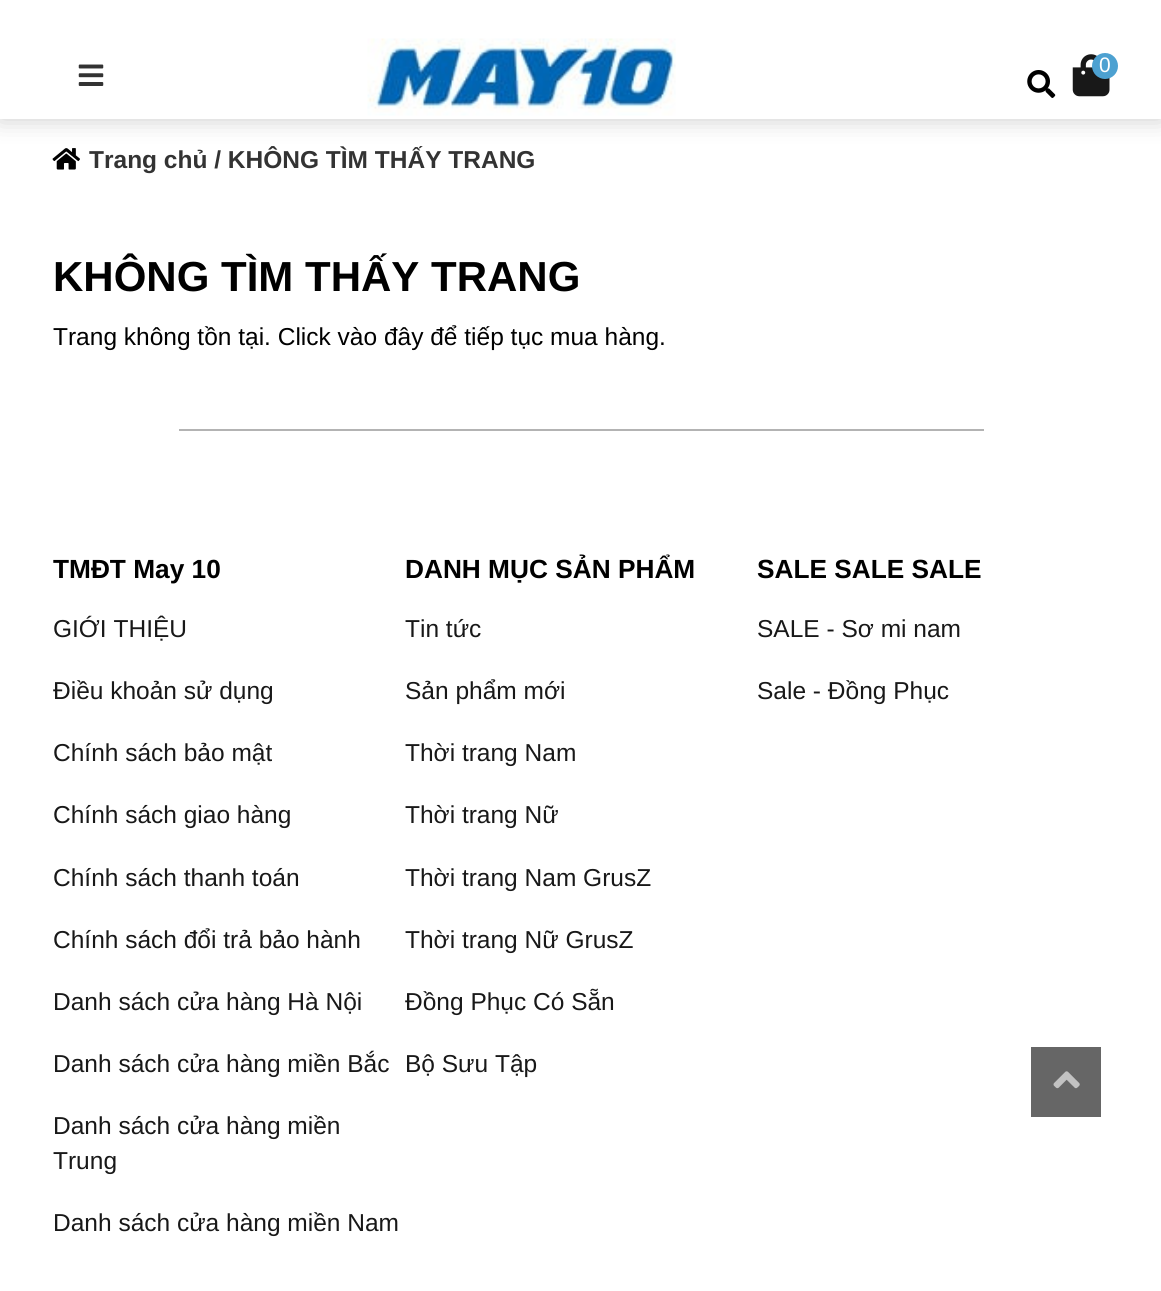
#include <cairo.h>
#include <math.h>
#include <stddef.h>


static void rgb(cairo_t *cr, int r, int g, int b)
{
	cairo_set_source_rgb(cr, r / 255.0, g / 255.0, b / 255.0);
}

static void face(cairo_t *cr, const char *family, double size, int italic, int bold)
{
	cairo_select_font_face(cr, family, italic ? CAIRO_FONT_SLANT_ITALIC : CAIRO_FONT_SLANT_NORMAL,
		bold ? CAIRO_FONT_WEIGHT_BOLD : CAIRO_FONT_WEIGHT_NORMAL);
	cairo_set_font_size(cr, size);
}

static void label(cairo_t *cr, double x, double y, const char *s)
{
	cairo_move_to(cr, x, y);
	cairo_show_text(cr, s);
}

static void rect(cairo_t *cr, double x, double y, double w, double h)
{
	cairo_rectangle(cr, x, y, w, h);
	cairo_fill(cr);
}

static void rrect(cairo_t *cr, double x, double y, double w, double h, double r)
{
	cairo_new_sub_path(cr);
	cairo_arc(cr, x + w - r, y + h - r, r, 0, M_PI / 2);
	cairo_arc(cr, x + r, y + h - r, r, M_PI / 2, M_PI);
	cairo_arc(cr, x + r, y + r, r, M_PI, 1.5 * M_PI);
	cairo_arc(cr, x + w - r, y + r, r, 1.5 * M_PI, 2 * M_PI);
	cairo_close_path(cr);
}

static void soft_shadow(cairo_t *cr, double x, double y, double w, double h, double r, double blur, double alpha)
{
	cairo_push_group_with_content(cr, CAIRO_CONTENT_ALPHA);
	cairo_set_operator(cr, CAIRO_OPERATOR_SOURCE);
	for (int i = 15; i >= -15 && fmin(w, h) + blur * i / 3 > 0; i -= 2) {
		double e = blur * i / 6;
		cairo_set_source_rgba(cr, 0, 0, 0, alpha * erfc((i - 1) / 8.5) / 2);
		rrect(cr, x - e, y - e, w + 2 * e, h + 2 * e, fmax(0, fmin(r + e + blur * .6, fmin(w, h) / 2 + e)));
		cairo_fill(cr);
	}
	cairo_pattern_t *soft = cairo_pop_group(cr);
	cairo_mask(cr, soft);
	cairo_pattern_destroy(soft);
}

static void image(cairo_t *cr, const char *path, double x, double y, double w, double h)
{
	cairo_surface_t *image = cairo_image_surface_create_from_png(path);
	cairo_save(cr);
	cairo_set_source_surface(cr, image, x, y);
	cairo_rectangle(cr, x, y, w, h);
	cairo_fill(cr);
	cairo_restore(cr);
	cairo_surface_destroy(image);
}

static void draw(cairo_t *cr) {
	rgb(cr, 255, 255, 255);
	cairo_paint(cr);
	image(cr, "image4.png", 52, 148, 28, 22);
	cairo_save(cr);
	cairo_rectangle(cr, 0, 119, 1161, 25);
	cairo_clip(cr);
	rgb(cr, 204, 204, 204);
	soft_shadow(cr, 0, 0, 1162, 119, 0, 12, 1);
	cairo_restore(cr);
	image(cr, "image0.png", 78, 64, 26, 22);
	image(cr, "image1.png", 367, 38, 309, 78);
	image(cr, "image2.png", 1072, 54, 38, 43);
	rgb(cr, 77, 161, 209);
	cairo_arc(cr, 1105, 66, 13, 0, 2 * M_PI);
	cairo_fill(cr);
	face(cr, "Liberation Sans", 21, 0, 0);
	rgb(cr, 255, 255, 255);
	label(cr, 1099, 72, "0");
	image(cr, "image3.png", 1027, 70, 29, 28);
	face(cr, "Liberation Sans", 24.5, 0, 1);
	rgb(cr, 51, 51, 51);
	label(cr, 89, 168, "Trang chủ / KHÔNG TÌM THẤY TRANG");
	face(cr, "Liberation Sans", 42, 0, 1);
	rgb(cr, 0, 0, 0);
	label(cr, 53, 291, "KHÔNG TÌM THẤY TRANG");
	face(cr, "Liberation Sans", 24.5, 0, 0);
	label(cr, 53, 345, "Trang không tồn tại. Click vào đây để tiếp tục mua hàng.");
	rgb(cr, 179, 179, 179);
	rect(cr, 179, 429, 805, 2);
	face(cr, "Liberation Sans", 26.25, 0, 1);
	rgb(cr, 0, 0, 0);
	label(cr, 53, 578, "TMĐT May 10");
	face(cr, "Liberation Sans", 24.5, 0, 0);
	rgb(cr, 24, 24, 24);
	label(cr, 53, 637, "GIỚI THIỆU");
	label(cr, 53, 699, "Điều khoản sử dụng");
	label(cr, 53, 761, "Chính sách bảo mật");
	label(cr, 53, 823, "Chính sách giao hàng");
	label(cr, 53, 886, "Chính sách thanh toán");
	label(cr, 53, 948, "Chính sách đổi trả bảo hành");
	label(cr, 53, 1010, "Danh sách cửa hàng Hà Nội");
	label(cr, 53, 1072, "Danh sách cửa hàng miền Bắc");
	label(cr, 53, 1134, "Danh sách cửa hàng miền");
	label(cr, 53, 1169, "Trung");
	label(cr, 53, 1231, "Danh sách cửa hàng miền Nam");
	face(cr, "Liberation Sans", 26.25, 0, 1);
	rgb(cr, 0, 0, 0);
	label(cr, 405, 578, "DANH MỤC SẢN PHẨM");
	face(cr, "Liberation Sans", 24.5, 0, 0);
	rgb(cr, 24, 24, 24);
	label(cr, 405, 637, "Tin tức");
	label(cr, 405, 699, "Sản phẩm mới");
	label(cr, 405, 761, "Thời trang Nam");
	label(cr, 405, 823, "Thời trang Nữ");
	label(cr, 405, 886, "Thời trang Nam GrusZ");
	label(cr, 405, 948, "Thời trang Nữ GrusZ");
	label(cr, 405, 1010, "Đồng Phục Có Sẵn");
	label(cr, 405, 1072, "Bộ Sưu Tập");
	face(cr, "Liberation Sans", 26.25, 0, 1);
	rgb(cr, 0, 0, 0);
	label(cr, 757, 578, "SALE SALE SALE");
	face(cr, "Liberation Sans", 24.5, 0, 0);
	rgb(cr, 24, 24, 24);
	label(cr, 757, 637, "SALE - Sơ mi nam");
	label(cr, 757, 699, "Sale - Đồng Phục");
	rgb(cr, 102, 102, 102);
	rect(cr, 1031, 1047, 70, 70);
	image(cr, "image5.png", 1053, 1071, 27, 18);
}

int main(void) {
	cairo_surface_t *surface = cairo_image_surface_create(CAIRO_FORMAT_RGB24, 1161, 1291);
	cairo_t *cr = cairo_create(surface);
	cairo_font_options_t *options = cairo_font_options_create();
	cairo_font_options_set_hint_metrics(options, CAIRO_HINT_METRICS_OFF);
	cairo_font_options_set_hint_style(options, CAIRO_HINT_STYLE_NONE);
	cairo_set_font_options(cr, options);
	cairo_set_miter_limit(cr, 4);
	draw(cr);
	cairo_surface_write_to_png(surface, "render.png");
	cairo_font_options_destroy(options);
	cairo_destroy(cr);
	cairo_surface_destroy(surface);
	return 0;
}
